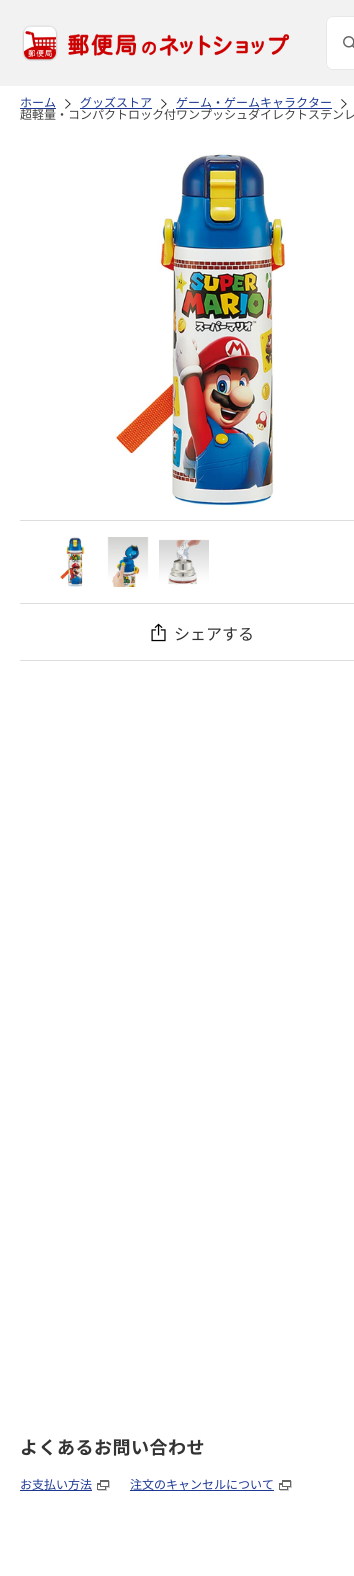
#include <cairo.h>
#include <math.h>
#include <stddef.h>


static void rgb(cairo_t *cr, int r, int g, int b)
{
	cairo_set_source_rgb(cr, r / 255.0, g / 255.0, b / 255.0);
}

static void face(cairo_t *cr, const char *family, double size, int italic, int bold)
{
	cairo_select_font_face(cr, family, italic ? CAIRO_FONT_SLANT_ITALIC : CAIRO_FONT_SLANT_NORMAL,
		bold ? CAIRO_FONT_WEIGHT_BOLD : CAIRO_FONT_WEIGHT_NORMAL);
	cairo_set_font_size(cr, size);
}

static void label(cairo_t *cr, double x, double y, const char *s)
{
	cairo_move_to(cr, x, y);
	cairo_show_text(cr, s);
}

static void tracked(cairo_t *cr, double x, double y, const char *s, double letter, double word)
{
	cairo_move_to(cr, x, y);
	while (*s) {
		char ch[5] = {0};
		int n = 0;
		do ch[n++] = *s++; while ((*s & 0xC0) == 0x80);
		cairo_show_text(cr, ch);
		cairo_rel_move_to(cr, letter + word * (*ch == ' '), 0);
	}
}

static void rect(cairo_t *cr, double x, double y, double w, double h)
{
	cairo_rectangle(cr, x, y, w, h);
	cairo_fill(cr);
}

static void rrect(cairo_t *cr, double x, double y, double w, double h, double r)
{
	cairo_new_sub_path(cr);
	cairo_arc(cr, x + w - r, y + h - r, r, 0, M_PI / 2);
	cairo_arc(cr, x + r, y + h - r, r, M_PI / 2, M_PI);
	cairo_arc(cr, x + r, y + r, r, M_PI, 1.5 * M_PI);
	cairo_arc(cr, x + w - r, y + r, r, 1.5 * M_PI, 2 * M_PI);
	cairo_close_path(cr);
}

static void image(cairo_t *cr, const char *path, double x, double y, double w, double h)
{
	cairo_surface_t *image = cairo_image_surface_create_from_png(path);
	cairo_save(cr);
	cairo_set_source_surface(cr, image, x, y);
	cairo_rectangle(cr, x, y, w, h);
	cairo_fill(cr);
	cairo_restore(cr);
	cairo_surface_destroy(image);
}

static void draw(cairo_t *cr) {
	rgb(cr, 255, 255, 255);
	cairo_paint(cr);
	rgb(cr, 242, 242, 242);
	rect(cr, 0, 0, 354, 86);
	image(cr, "image0.png", 22, 25, 267, 36);
	rrect(cr, 326.5, 16.5, 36, 53, 7.5);
	rgb(cr, 232, 232, 232);
	cairo_set_line_width(cr, 1);
	cairo_stroke(cr);
	rgb(cr, 255, 255, 255);
	rrect(cr, 327, 17, 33, 52, 6);
	cairo_fill(cr);
	image(cr, "image1.png", 343, 36, 11, 12);
	face(cr, "Noto Sans JP", 12, 0, 0);
	rgb(cr, 29, 57, 148);
	label(cr, 20, 107, "ホーム");
	rect(cr, 20, 108, 36, 1);
	image(cr, "image2.png", 65, 99, 6, 10);
	label(cr, 80, 107, "グッズストア");
	rect(cr, 80, 108, 72, 1);
	image(cr, "image2.png", 161, 99, 6, 10);
	rect(cr, 176, 108, 156, 1);
	label(cr, 176, 107, "ゲーム・ゲームキャラクター");
	image(cr, "image2.png", 341, 99, 6, 10);
	rgb(cr, 65, 65, 67);
	label(cr, 20, 119, "超軽量・コンパクトロック付ワンプッシュダイレクトステンレ");
	image(cr, "image3.png", 112, 151, 174, 356);
	rgb(cr, 221, 221, 221);
	rect(cr, 20, 520, 334, 1);
	image(cr, "image4.png", 60, 537, 25, 50);
	image(cr, "image5.png", 107, 537, 42, 50);
	image(cr, "image6.png", 159, 539, 50, 46);
	rect(cr, 20, 603, 334, 1);
	rect(cr, 20, 660, 334, 1);
	image(cr, "image7.png", 151, 623, 15, 19);
	face(cr, "Noto Sans JP", 16, 0, 0);
	rgb(cr, 51, 51, 51);
	label(cr, 174, 640, "シェアする");
	face(cr, "Noto Sans JP", 18, 0, 1);
	tracked(cr, 20, 1454, "よくあるお問い合わせ", 0.5, 0);
	face(cr, "Noto Sans JP", 12, 0, 0);
	rgb(cr, 29, 57, 148);
	label(cr, 20, 1489, "お支払い方法");
	rect(cr, 20, 1490, 72, 1);
	image(cr, "image8.png", 97, 1480, 13, 11);
	rect(cr, 130, 1490, 144, 1);
	label(cr, 130, 1489, "注文のキャンセルについて");
	image(cr, "image8.png", 279, 1480, 13, 11);
}

int main(void) {
	cairo_surface_t *surface = cairo_image_surface_create(CAIRO_FORMAT_RGB24, 354, 1576);
	cairo_t *cr = cairo_create(surface);
	cairo_font_options_t *options = cairo_font_options_create();
	cairo_font_options_set_hint_metrics(options, CAIRO_HINT_METRICS_OFF);
	cairo_font_options_set_hint_style(options, CAIRO_HINT_STYLE_NONE);
	cairo_set_font_options(cr, options);
	cairo_set_miter_limit(cr, 4);
	draw(cr);
	cairo_surface_write_to_png(surface, "render.png");
	cairo_font_options_destroy(options);
	cairo_destroy(cr);
	cairo_surface_destroy(surface);
	return 0;
}
